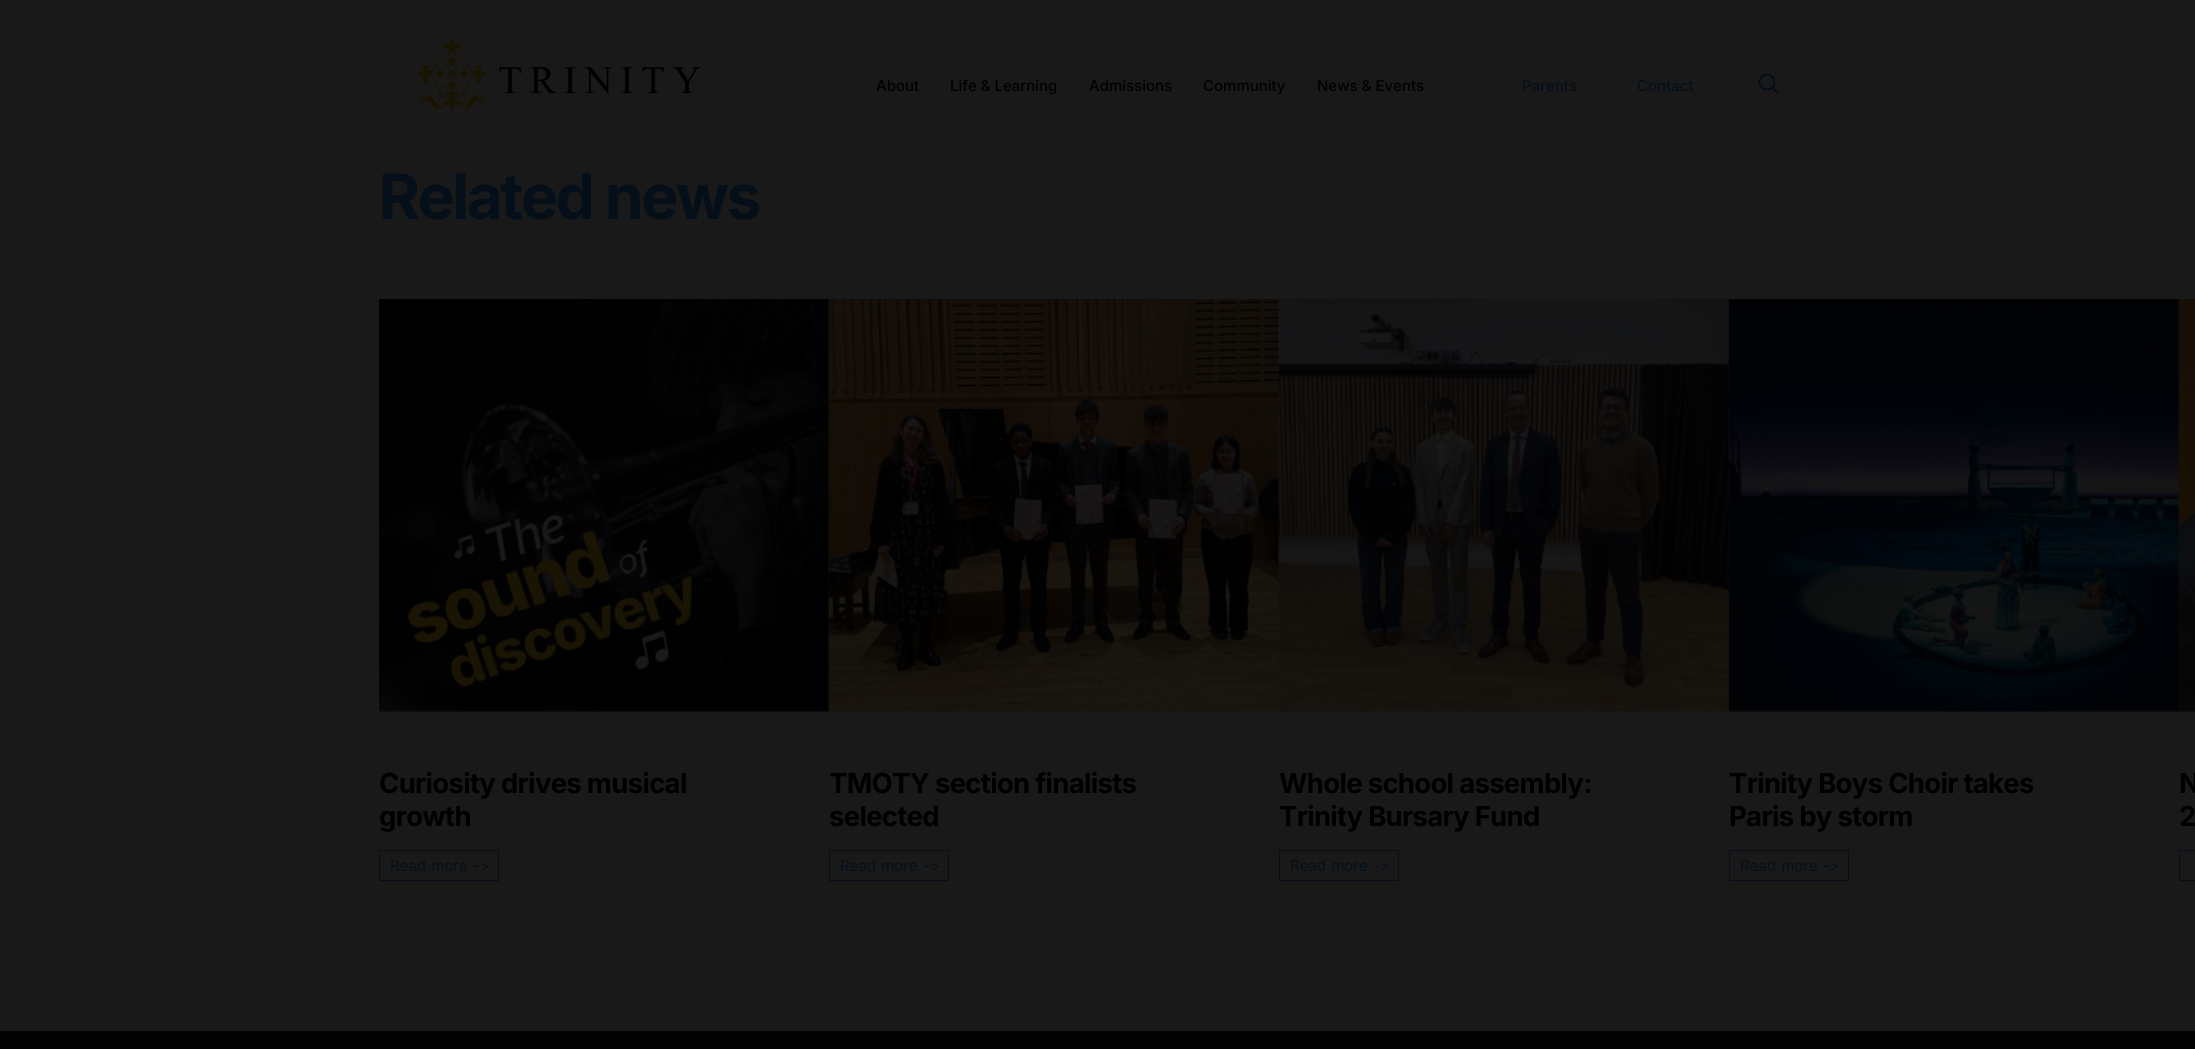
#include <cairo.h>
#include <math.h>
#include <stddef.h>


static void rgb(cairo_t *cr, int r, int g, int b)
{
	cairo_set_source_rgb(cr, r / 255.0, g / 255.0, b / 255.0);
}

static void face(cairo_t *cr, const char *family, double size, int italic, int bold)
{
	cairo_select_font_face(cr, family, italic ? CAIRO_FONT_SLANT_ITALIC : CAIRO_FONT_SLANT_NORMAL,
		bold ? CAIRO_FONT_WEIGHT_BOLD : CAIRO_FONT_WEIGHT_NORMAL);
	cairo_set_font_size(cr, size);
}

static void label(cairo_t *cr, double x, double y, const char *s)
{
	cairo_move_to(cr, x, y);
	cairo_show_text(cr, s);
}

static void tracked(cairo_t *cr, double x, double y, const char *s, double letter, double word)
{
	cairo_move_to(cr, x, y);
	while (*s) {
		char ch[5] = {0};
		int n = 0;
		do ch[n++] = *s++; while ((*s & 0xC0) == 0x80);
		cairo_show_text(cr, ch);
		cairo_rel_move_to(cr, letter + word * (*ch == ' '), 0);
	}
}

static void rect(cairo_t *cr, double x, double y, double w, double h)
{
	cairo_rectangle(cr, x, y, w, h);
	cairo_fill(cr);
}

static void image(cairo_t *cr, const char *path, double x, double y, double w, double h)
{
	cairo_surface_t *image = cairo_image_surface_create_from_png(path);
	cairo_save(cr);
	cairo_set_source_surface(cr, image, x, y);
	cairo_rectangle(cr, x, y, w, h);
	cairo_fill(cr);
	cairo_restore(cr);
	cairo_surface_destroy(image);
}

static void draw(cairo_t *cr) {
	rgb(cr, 25, 25, 25);
	cairo_paint(cr);
	image(cr, "image0.png", 417, 38, 284, 73);
	face(cr, "Inter Medium", 15, 0, 0);
	rgb(cr, 0, 0, 0);
	label(cr, 876, 91, "About");
	label(cr, 950, 91, "Life & Learning");
	label(cr, 1089, 91, "Admissions");
	label(cr, 1203, 91, "Community");
	label(cr, 1317, 91, "News & Events");
	rgb(cr, 4, 15, 25);
	label(cr, 1522, 91, "Parents");
	label(cr, 1637, 91, "Contact");
	cairo_new_path(cr);
	cairo_arc(cr, 1767, 82, 7.5, 0, 2 * M_PI);
	rgb(cr, 1, 11, 21);
	cairo_set_line_width(cr, 1.2);
	cairo_stroke(cr);
	cairo_new_path(cr);
	cairo_move_to(cr, 1772.5, 87.5);
	cairo_line_to(cr, 1778.5, 93.5);
	cairo_stroke(cr);
	cairo_arc(cr, 1767, 82, 7.5, 0, 2 * M_PI);
	cairo_stroke(cr);
	cairo_new_path(cr);
	cairo_move_to(cr, 1772.5, 87.5);
	cairo_line_to(cr, 1778.5, 93.5);
	cairo_stroke(cr);
	face(cr, "Inter", 62.5, 0, 1);
	rgb(cr, 4, 15, 25);
	tracked(cr, 379, 219, "Related news", -2.5, 0);
	image(cr, "image1.png", 379, 299, 450, 413);
	face(cr, "Inter", 27.5, 0, 1);
	rgb(cr, 0, 0, 0);
	tracked(cr, 379, 793, "Curiosity drives musical", -0.7, 0);
	tracked(cr, 379, 826, "growth", -0.7, 0);
	cairo_rectangle(cr, 379.5, 850.5, 119, 30);
	rgb(cr, 4, 15, 25);
	cairo_set_line_width(cr, 1);
	cairo_stroke(cr);
	face(cr, "Inter", 15, 0, 0);
	tracked(cr, 390, 871, "Read more ->", 0, 1);
	image(cr, "image2.png", 828, 299, 451, 413);
	face(cr, "Inter", 27.5, 0, 1);
	rgb(cr, 0, 0, 0);
	tracked(cr, 829, 793, "TMOTY section finalists", -0.7, 0);
	tracked(cr, 829, 826, "selected", -0.7, 0);
	cairo_rectangle(cr, 829.5, 850.5, 119, 30);
	rgb(cr, 4, 15, 25);
	cairo_stroke(cr);
	face(cr, "Inter", 15, 0, 0);
	tracked(cr, 840, 871, "Read more ->", 0, 1);
	image(cr, "image3.png", 1278, 299, 451, 413);
	face(cr, "Inter", 27.5, 0, 1);
	rgb(cr, 0, 0, 0);
	tracked(cr, 1279, 793, "Whole school assembly:", -0.7, 0);
	tracked(cr, 1279, 826, "Trinity Bursary Fund", -0.7, 0);
	cairo_rectangle(cr, 1279.5, 850.5, 119, 30);
	rgb(cr, 4, 15, 25);
	cairo_stroke(cr);
	face(cr, "Inter", 15, 0, 0);
	tracked(cr, 1290, 871, "Read more ->", 0, 1);
	image(cr, "image4.png", 1728, 299, 451, 413);
	face(cr, "Inter", 27.5, 0, 1);
	rgb(cr, 0, 0, 0);
	tracked(cr, 1729, 793, "Trinity Boys Choir takes", -0.7, 0);
	tracked(cr, 1729, 826, "Paris by storm", -0.7, 0);
	cairo_rectangle(cr, 1729.5, 850.5, 119, 30);
	rgb(cr, 4, 15, 25);
	cairo_stroke(cr);
	face(cr, "Inter", 15, 0, 0);
	tracked(cr, 1740, 871, "Read more ->", 0, 1);
	image(cr, "image5.png", 2178, 299, 17, 413);
	face(cr, "Inter", 27.5, 0, 1);
	rgb(cr, 0, 0, 0);
	tracked(cr, 2179, 793, "N", -0.7, 0);
	tracked(cr, 2179, 826, "2", -0.7, 0);
	cairo_rectangle(cr, 2179.5, 850.5, 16, 30);
	rgb(cr, 4, 15, 25);
	cairo_stroke(cr);
	rgb(cr, 2, 2, 2);
	rect(cr, 0, 1031, 2195, 18);
}

int main(void) {
	cairo_surface_t *surface = cairo_image_surface_create(CAIRO_FORMAT_RGB24, 2195, 1049);
	cairo_t *cr = cairo_create(surface);
	cairo_font_options_t *options = cairo_font_options_create();
	cairo_font_options_set_hint_metrics(options, CAIRO_HINT_METRICS_OFF);
	cairo_font_options_set_hint_style(options, CAIRO_HINT_STYLE_NONE);
	cairo_set_font_options(cr, options);
	cairo_set_miter_limit(cr, 4);
	draw(cr);
	cairo_surface_write_to_png(surface, "render.png");
	cairo_font_options_destroy(options);
	cairo_destroy(cr);
	cairo_surface_destroy(surface);
	return 0;
}
